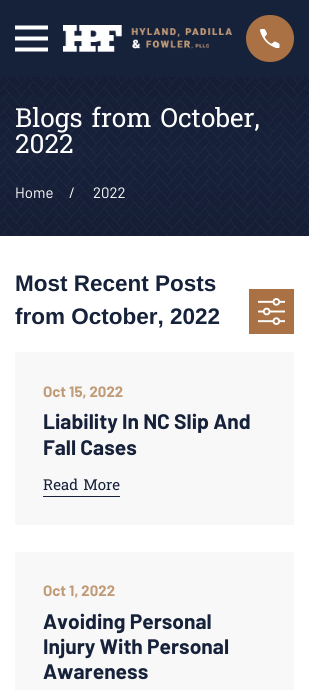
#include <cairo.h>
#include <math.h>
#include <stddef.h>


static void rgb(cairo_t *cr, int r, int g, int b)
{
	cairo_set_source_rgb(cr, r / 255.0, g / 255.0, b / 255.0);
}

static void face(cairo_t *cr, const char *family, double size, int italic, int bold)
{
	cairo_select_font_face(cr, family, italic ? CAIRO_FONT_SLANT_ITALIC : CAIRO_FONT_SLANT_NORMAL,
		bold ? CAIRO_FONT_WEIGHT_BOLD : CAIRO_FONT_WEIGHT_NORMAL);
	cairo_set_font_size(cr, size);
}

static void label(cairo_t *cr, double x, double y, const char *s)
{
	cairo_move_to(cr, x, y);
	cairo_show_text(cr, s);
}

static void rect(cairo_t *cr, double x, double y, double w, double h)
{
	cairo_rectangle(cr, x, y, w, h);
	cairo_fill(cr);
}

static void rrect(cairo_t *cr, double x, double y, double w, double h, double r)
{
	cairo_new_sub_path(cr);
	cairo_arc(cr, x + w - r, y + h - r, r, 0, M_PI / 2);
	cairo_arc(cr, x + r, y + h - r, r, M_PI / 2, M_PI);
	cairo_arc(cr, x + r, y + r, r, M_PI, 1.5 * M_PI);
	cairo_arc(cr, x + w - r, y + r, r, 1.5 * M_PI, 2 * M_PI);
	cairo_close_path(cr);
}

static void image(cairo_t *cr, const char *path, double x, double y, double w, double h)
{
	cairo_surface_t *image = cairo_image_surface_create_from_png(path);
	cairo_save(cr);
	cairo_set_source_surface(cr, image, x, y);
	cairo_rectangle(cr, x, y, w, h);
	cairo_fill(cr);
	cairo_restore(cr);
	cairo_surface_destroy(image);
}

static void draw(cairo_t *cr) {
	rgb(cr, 255, 255, 255);
	cairo_paint(cr);
	rgb(cr, 22, 33, 58);
	rect(cr, 0, 0, 309, 77);
	rgb(cr, 255, 255, 255);
	cairo_new_path(cr);
	cairo_move_to(cr, 15, 25.5);
	cairo_line_to(cr, 15, 29.5);
	cairo_line_to(cr, 48, 29.5);
	cairo_line_to(cr, 48, 25.5);
	cairo_close_path(cr);
	cairo_move_to(cr, 15, 36.5);
	cairo_line_to(cr, 15, 40.5);
	cairo_line_to(cr, 48, 40.5);
	cairo_line_to(cr, 48, 36.5);
	cairo_close_path(cr);
	cairo_move_to(cr, 15, 47.5);
	cairo_line_to(cr, 15, 51.5);
	cairo_line_to(cr, 48, 51.5);
	cairo_line_to(cr, 48, 47.5);
	cairo_close_path(cr);
	cairo_fill(cr);
	image(cr, "image0.png", 63, 25, 169, 27);
	rgb(cr, 170, 114, 68);
	rrect(cr, 246, 15, 48, 47, 23.5);
	cairo_fill(cr);
	image(cr, "image1.png", 260, 29, 20, 19);
	image(cr, "image2.png", 0, 77, 309, 159);
	face(cr, "Hanuman", 26.25, 0, 0);
	rgb(cr, 255, 255, 255);
	label(cr, 15, 127, "Blogs from October,");
	label(cr, 15, 153, "2022");
	face(cr, "Barlow", 15, 0, 0);
	label(cr, 15, 198, "Home");
	label(cr, 69, 198, "/");
	label(cr, 93, 198, "2022");
	face(cr, "Liberation Sans", 22.5, 0, 1);
	rgb(cr, 22, 33, 58);
	label(cr, 15, 291, "Most Recent Posts");
	label(cr, 15, 324, "from October, 2022");
	rgb(cr, 170, 114, 68);
	rect(cr, 249, 289, 45, 45);
	image(cr, "image3.png", 258, 298, 27, 27);
	rgb(cr, 248, 248, 248);
	rect(cr, 15, 352, 279, 173);
	face(cr, "Barlow", 15, 0, 1);
	rgb(cr, 193, 154, 118);
	label(cr, 43, 397, "Oct 15, 2022");
	face(cr, "Barlow", 21, 0, 1);
	rgb(cr, 22, 33, 58);
	label(cr, 43, 429, "Liability In NC Slip And");
	label(cr, 43, 455, "Fall Cases");
	face(cr, "Hanuman", 15, 0, 0);
	label(cr, 43, 490, "Read More");
	rect(cr, 43, 496, 77, 1);
	rgb(cr, 248, 248, 248);
	rect(cr, 15, 552, 279, 138);
	face(cr, "Barlow", 15, 0, 1);
	rgb(cr, 193, 154, 118);
	label(cr, 43, 596, "Oct 1, 2022");
	face(cr, "Barlow", 21, 0, 1);
	rgb(cr, 22, 33, 58);
	label(cr, 43, 629, "Avoiding Personal");
	label(cr, 43, 654, "Injury With Personal");
	label(cr, 43, 679, "Awareness");
}

int main(void) {
	cairo_surface_t *surface = cairo_image_surface_create(CAIRO_FORMAT_RGB24, 309, 690);
	cairo_t *cr = cairo_create(surface);
	cairo_font_options_t *options = cairo_font_options_create();
	cairo_font_options_set_hint_metrics(options, CAIRO_HINT_METRICS_OFF);
	cairo_font_options_set_hint_style(options, CAIRO_HINT_STYLE_NONE);
	cairo_set_font_options(cr, options);
	cairo_set_miter_limit(cr, 4);
	draw(cr);
	cairo_surface_write_to_png(surface, "render.png");
	cairo_font_options_destroy(options);
	cairo_destroy(cr);
	cairo_surface_destroy(surface);
	return 0;
}
